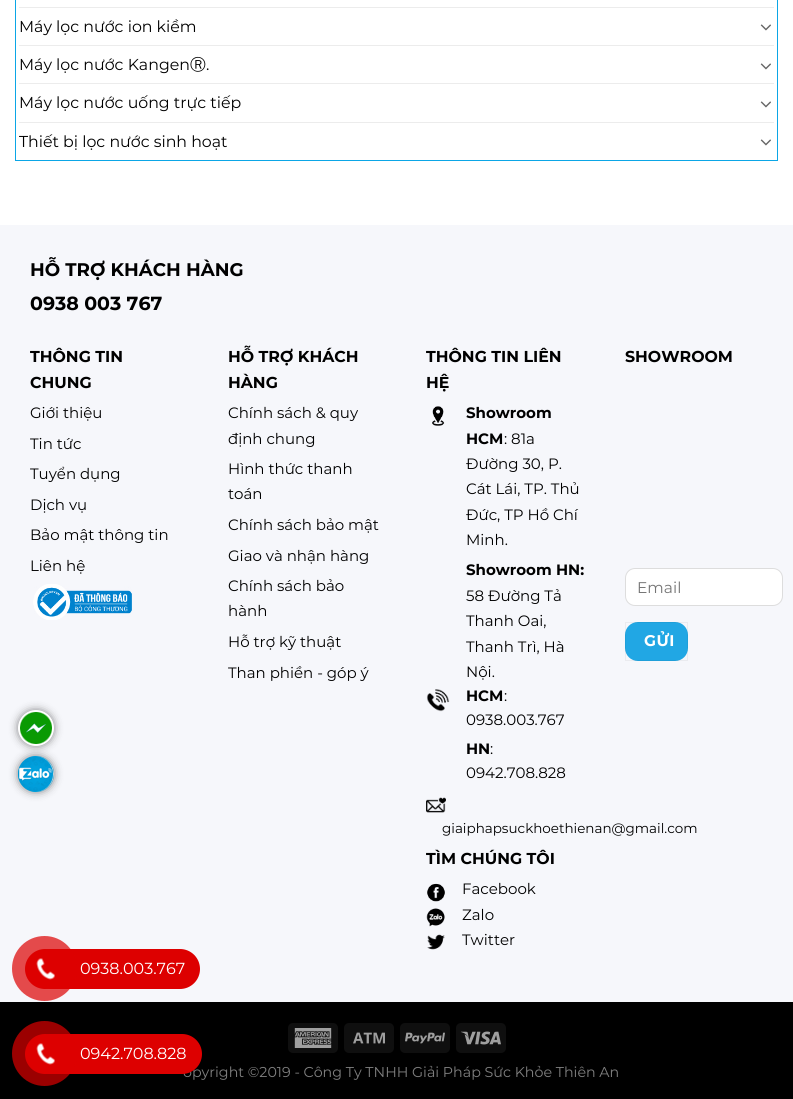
#include <cairo.h>
#include <math.h>
#include <stddef.h>


static void rgb(cairo_t *cr, int r, int g, int b)
{
	cairo_set_source_rgb(cr, r / 255.0, g / 255.0, b / 255.0);
}

static void face(cairo_t *cr, const char *family, double size, int italic, int bold)
{
	cairo_select_font_face(cr, family, italic ? CAIRO_FONT_SLANT_ITALIC : CAIRO_FONT_SLANT_NORMAL,
		bold ? CAIRO_FONT_WEIGHT_BOLD : CAIRO_FONT_WEIGHT_NORMAL);
	cairo_set_font_size(cr, size);
}

static void label(cairo_t *cr, double x, double y, const char *s)
{
	cairo_move_to(cr, x, y);
	cairo_show_text(cr, s);
}

static void tracked(cairo_t *cr, double x, double y, const char *s, double letter, double word)
{
	cairo_move_to(cr, x, y);
	while (*s) {
		char ch[5] = {0};
		int n = 0;
		do ch[n++] = *s++; while ((*s & 0xC0) == 0x80);
		cairo_show_text(cr, ch);
		cairo_rel_move_to(cr, letter + word * (*ch == ' '), 0);
	}
}

static void rect(cairo_t *cr, double x, double y, double w, double h)
{
	cairo_rectangle(cr, x, y, w, h);
	cairo_fill(cr);
}

static void rrect(cairo_t *cr, double x, double y, double w, double h, double r)
{
	cairo_new_sub_path(cr);
	cairo_arc(cr, x + w - r, y + h - r, r, 0, M_PI / 2);
	cairo_arc(cr, x + r, y + h - r, r, M_PI / 2, M_PI);
	cairo_arc(cr, x + r, y + r, r, M_PI, 1.5 * M_PI);
	cairo_arc(cr, x + w - r, y + r, r, 1.5 * M_PI, 2 * M_PI);
	cairo_close_path(cr);
}

static void soft_shadow(cairo_t *cr, double x, double y, double w, double h, double r, double blur, double alpha)
{
	cairo_push_group_with_content(cr, CAIRO_CONTENT_ALPHA);
	cairo_set_operator(cr, CAIRO_OPERATOR_SOURCE);
	for (int i = 15; i >= -15 && fmin(w, h) + blur * i / 3 > 0; i -= 2) {
		double e = blur * i / 6;
		cairo_set_source_rgba(cr, 0, 0, 0, alpha * erfc((i - 1) / 8.5) / 2);
		rrect(cr, x - e, y - e, w + 2 * e, h + 2 * e, fmax(0, fmin(r + e + blur * .6, fmin(w, h) / 2 + e)));
		cairo_fill(cr);
	}
	cairo_pattern_t *soft = cairo_pop_group(cr);
	cairo_mask(cr, soft);
	cairo_pattern_destroy(soft);
}

static void image(cairo_t *cr, const char *path, double x, double y, double w, double h)
{
	cairo_surface_t *image = cairo_image_surface_create_from_png(path);
	cairo_save(cr);
	cairo_set_source_surface(cr, image, x, y);
	cairo_rectangle(cr, x, y, w, h);
	cairo_fill(cr);
	cairo_restore(cr);
	cairo_surface_destroy(image);
}

static void draw(cairo_t *cr) {
	rgb(cr, 255, 255, 255);
	cairo_paint(cr);
	cairo_rectangle(cr, 15.5, -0.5, 762, 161);
	rgb(cr, 11, 166, 230);
	cairo_set_line_width(cr, 1);
	cairo_stroke(cr);
	rgb(cr, 236, 236, 236);
	rect(cr, 19, 7, 755, 1);
	face(cr, "Montserrat", 15.8, 0, 0);
	rgb(cr, 0, 0, 0);
	label(cr, 19, 32, "Máy lọc nước ion kiềm");
	image(cr, "image0.png", 760, 24, 11, 7);
	rgb(cr, 236, 236, 236);
	rect(cr, 19, 45, 755, 1);
	rgb(cr, 0, 0, 0);
	label(cr, 19, 70, "Máy lọc nước Kangen");
	face(cr, "WenQuanYi Zen Hei Medium", 15.8, 0, 0);
	label(cr, 190, 70, "Ⓡ");
	face(cr, "Montserrat", 15.8, 0, 0);
	label(cr, 206, 70, ".");
	image(cr, "image0.png", 760, 63, 11, 7);
	rgb(cr, 236, 236, 236);
	rect(cr, 19, 83, 755, 1);
	rgb(cr, 0, 0, 0);
	label(cr, 19, 108, "Máy lọc nước uống trực tiếp");
	image(cr, "image0.png", 760, 101, 11, 7);
	rgb(cr, 236, 236, 236);
	rect(cr, 19, 122, 755, 1);
	rgb(cr, 0, 0, 0);
	label(cr, 19, 147, "Thiết bị lọc nước sinh hoạt");
	image(cr, "image0.png", 760, 139, 11, 7);
	rgb(cr, 246, 247, 251);
	rect(cr, 0, 225, 793, 777);
	face(cr, "Montserrat", 18.25, 0, 1);
	rgb(cr, 0, 0, 0);
	label(cr, 30, 276, "HỖ TRỢ KHÁCH HÀNG");
	face(cr, "Montserrat", 19, 0, 1);
	label(cr, 30, 310, "0938 003 767");
	face(cr, "Montserrat", 15.8, 0, 1);
	label(cr, 30, 362, "THÔNG TIN");
	label(cr, 30, 388, "CHUNG");
	face(cr, "Montserrat", 15, 0, 0);
	label(cr, 30, 418, "Giới thiệu");
	label(cr, 30, 449, "Tin tức");
	label(cr, 30, 479, "Tuyển dụng");
	label(cr, 30, 510, "Dịch vụ");
	label(cr, 30, 540, "Bảo mật thông tin");
	label(cr, 30, 571, "Liên hệ");
	image(cr, "image1.png", 33, 584, 99, 36);
	face(cr, "Montserrat", 15.8, 0, 1);
	label(cr, 228, 362, "HỖ TRỢ KHÁCH");
	label(cr, 228, 388, "HÀNG");
	face(cr, "Montserrat", 15, 0, 0);
	label(cr, 228, 418, "Chính sách & quy");
	label(cr, 228, 444, "định chung");
	label(cr, 228, 474, "Hình thức thanh");
	label(cr, 228, 499, "toán");
	label(cr, 228, 530, "Chính sách bảo mật");
	label(cr, 228, 561, "Giao và nhận hàng");
	label(cr, 228, 591, "Chính sách bảo");
	label(cr, 228, 616, "hành");
	label(cr, 228, 647, "Hỗ trợ kỹ thuật");
	label(cr, 228, 678, "Than phiền - góp ý");
	face(cr, "Montserrat", 15.8, 0, 1);
	label(cr, 426, 362, "THÔNG TIN LIÊN");
	label(cr, 426, 388, "HỆ");
	image(cr, "image2.png", 432, 406, 13, 20);
	face(cr, "Montserrat", 15, 0, 1);
	label(cr, 466, 418, "Showroom");
	label(cr, 466, 444, "HCM");
	face(cr, "Montserrat", 15, 0, 0);
	label(cr, 504, 444, ": 81a");
	label(cr, 466, 469, "Đường 30, P.");
	label(cr, 466, 494, "Cát Lái, TP. Thủ");
	label(cr, 466, 520, "Đức, TP Hồ Chí");
	label(cr, 466, 545, "Minh.");
	face(cr, "Montserrat", 15, 0, 1);
	label(cr, 466, 575, "Showroom HN:");
	face(cr, "Montserrat", 15, 0, 0);
	label(cr, 466, 601, "58 Đường Tả");
	label(cr, 466, 626, "Thanh Oai,");
	label(cr, 466, 652, "Thanh Trì, Hà");
	label(cr, 466, 677, "Nội.");
	image(cr, "image3.png", 426, 689, 24, 23);
	face(cr, "Montserrat", 15, 0, 1);
	label(cr, 466, 701, "HCM");
	face(cr, "Montserrat", 15, 0, 0);
	label(cr, 504, 701, ":");
	label(cr, 466, 725, "0938.003.767");
	face(cr, "Montserrat", 15, 0, 1);
	label(cr, 466, 754, "HN");
	face(cr, "Montserrat", 15, 0, 0);
	label(cr, 490, 754, ":");
	label(cr, 466, 778, "0942.708.828");
	image(cr, "image4.png", 426, 797, 20, 16);
	face(cr, "Montserrat", 13.5, 0, 0);
	label(cr, 442, 833, "giaiphapsuckhoethienan@gmail.com");
	face(cr, "Montserrat", 15.8, 0, 1);
	label(cr, 426, 864, "TÌM CHÚNG TÔI");
	image(cr, "image5.png", 427, 883, 18, 19);
	face(cr, "Montserrat", 15, 0, 0);
	label(cr, 462, 894, "Facebook");
	image(cr, "image6.png", 426, 908, 19, 19);
	label(cr, 462, 920, "Zalo");
	image(cr, "image7.png", 427, 934, 18, 16);
	label(cr, 462, 945, "Twitter");
	face(cr, "Montserrat", 15.8, 0, 1);
	label(cr, 625, 362, "SHOWROOM");
	rgb(cr, 255, 255, 255);
	rrect(cr, 625.5, 568.5, 157, 37, 9.5);
	cairo_fill_preserve(cr);
	rgb(cr, 221, 221, 221);
	cairo_stroke(cr);
	face(cr, "Montserrat", 15.5, 0, 0);
	rgb(cr, 117, 117, 117);
	label(cr, 637, 593, "Email");
	rgb(cr, 33, 167, 228);
	rrect(cr, 625, 622, 63, 39, 13);
	cairo_fill(cr);
	cairo_rectangle(cr, 625.5, 622.5, 62, 38);
	cairo_set_source_rgba(cr, 0, 0, 0, 0.05);
	cairo_stroke(cr);
	face(cr, "Montserrat", 15.5, 0, 1);
	rgb(cr, 255, 255, 255);
	tracked(cr, 644, 646, "GỬI", 0.5, 0);
	rgb(cr, 0, 0, 0);
	rect(cr, 0, 1002, 793, 97);
	rgb(cr, 15, 15, 15);
	rrect(cr, 288, 1023, 50, 30, 5);
	cairo_fill(cr);
	image(cr, "image8.png", 294, 1028, 38, 20);
	rrect(cr, 344, 1023, 50, 30, 5);
	cairo_fill(cr);
	image(cr, "image9.png", 353, 1032, 32, 12);
	rrect(cr, 400, 1023, 50, 30, 5);
	cairo_fill(cr);
	image(cr, "image10.png", 405, 1032, 40, 12);
	rrect(cr, 456, 1023, 50, 30, 5);
	cairo_fill(cr);
	image(cr, "image11.png", 461, 1031, 40, 14);
	face(cr, "Montserrat", 14.25, 0, 0);
	rgb(cr, 128, 128, 128);
	label(cr, 183, 1077, "opyright ©2019 - Công Ty TNHH Giải Pháp Sức Khỏe Thiên An");
	rgb(cr, 0, 0, 0);
	soft_shadow(cr, 20, 712, 32, 32, 16, 5, 0.7);
	rgb(cr, 255, 255, 255);
	cairo_arc(cr, 36, 728, 18, 0, 2 * M_PI);
	cairo_fill(cr);
	image(cr, "image12.png", 20, 712, 32, 32);
	rgb(cr, 0, 0, 0);
	soft_shadow(cr, 20, 758, 32, 32, 16, 5, 0.7);
	rgb(cr, 0, 158, 219);
	cairo_arc(cr, 36, 774, 18, 0, 2 * M_PI);
	cairo_fill(cr);
	image(cr, "image13.png", 18, 756, 36, 36);
	rgb(cr, 221, 0, 0);
	rrect(cr, 30, 949, 170, 40, 20);
	cairo_fill(cr);
	cairo_set_source_rgba(cr, 0.867, 0, 0, 0.7);
	cairo_arc(cr, 44.5, 968.5, 32.5, 0, 2 * M_PI);
	cairo_fill(cr);
	rgb(cr, 221, 0, 0);
	cairo_arc(cr, 45, 969, 20, 0, 2 * M_PI);
	cairo_fill(cr);
	image(cr, "image14.png", 36, 958, 19, 22);
	face(cr, "Montserrat", 16, 0, 0);
	rgb(cr, 255, 255, 255);
	label(cr, 80, 974, "0938.003.767");
	rgb(cr, 221, 0, 0);
	rrect(cr, 30, 1034, 172, 40, 20);
	cairo_fill(cr);
	cairo_set_source_rgba(cr, 0.867, 0, 0, 0.7);
	cairo_arc(cr, 44.5, 1053.5, 32.5, 0, 2 * M_PI);
	cairo_fill(cr);
	rgb(cr, 221, 0, 0);
	cairo_arc(cr, 45, 1054, 20, 0, 2 * M_PI);
	cairo_fill(cr);
	image(cr, "image14.png", 36, 1043, 19, 22);
	rgb(cr, 255, 255, 255);
	label(cr, 80, 1059, "0942.708.828");
}

int main(void) {
	cairo_surface_t *surface = cairo_image_surface_create(CAIRO_FORMAT_RGB24, 793, 1099);
	cairo_t *cr = cairo_create(surface);
	cairo_font_options_t *options = cairo_font_options_create();
	cairo_font_options_set_hint_metrics(options, CAIRO_HINT_METRICS_OFF);
	cairo_font_options_set_hint_style(options, CAIRO_HINT_STYLE_NONE);
	cairo_set_font_options(cr, options);
	cairo_set_miter_limit(cr, 4);
	draw(cr);
	cairo_surface_write_to_png(surface, "render.png");
	cairo_font_options_destroy(options);
	cairo_destroy(cr);
	cairo_surface_destroy(surface);
	return 0;
}
